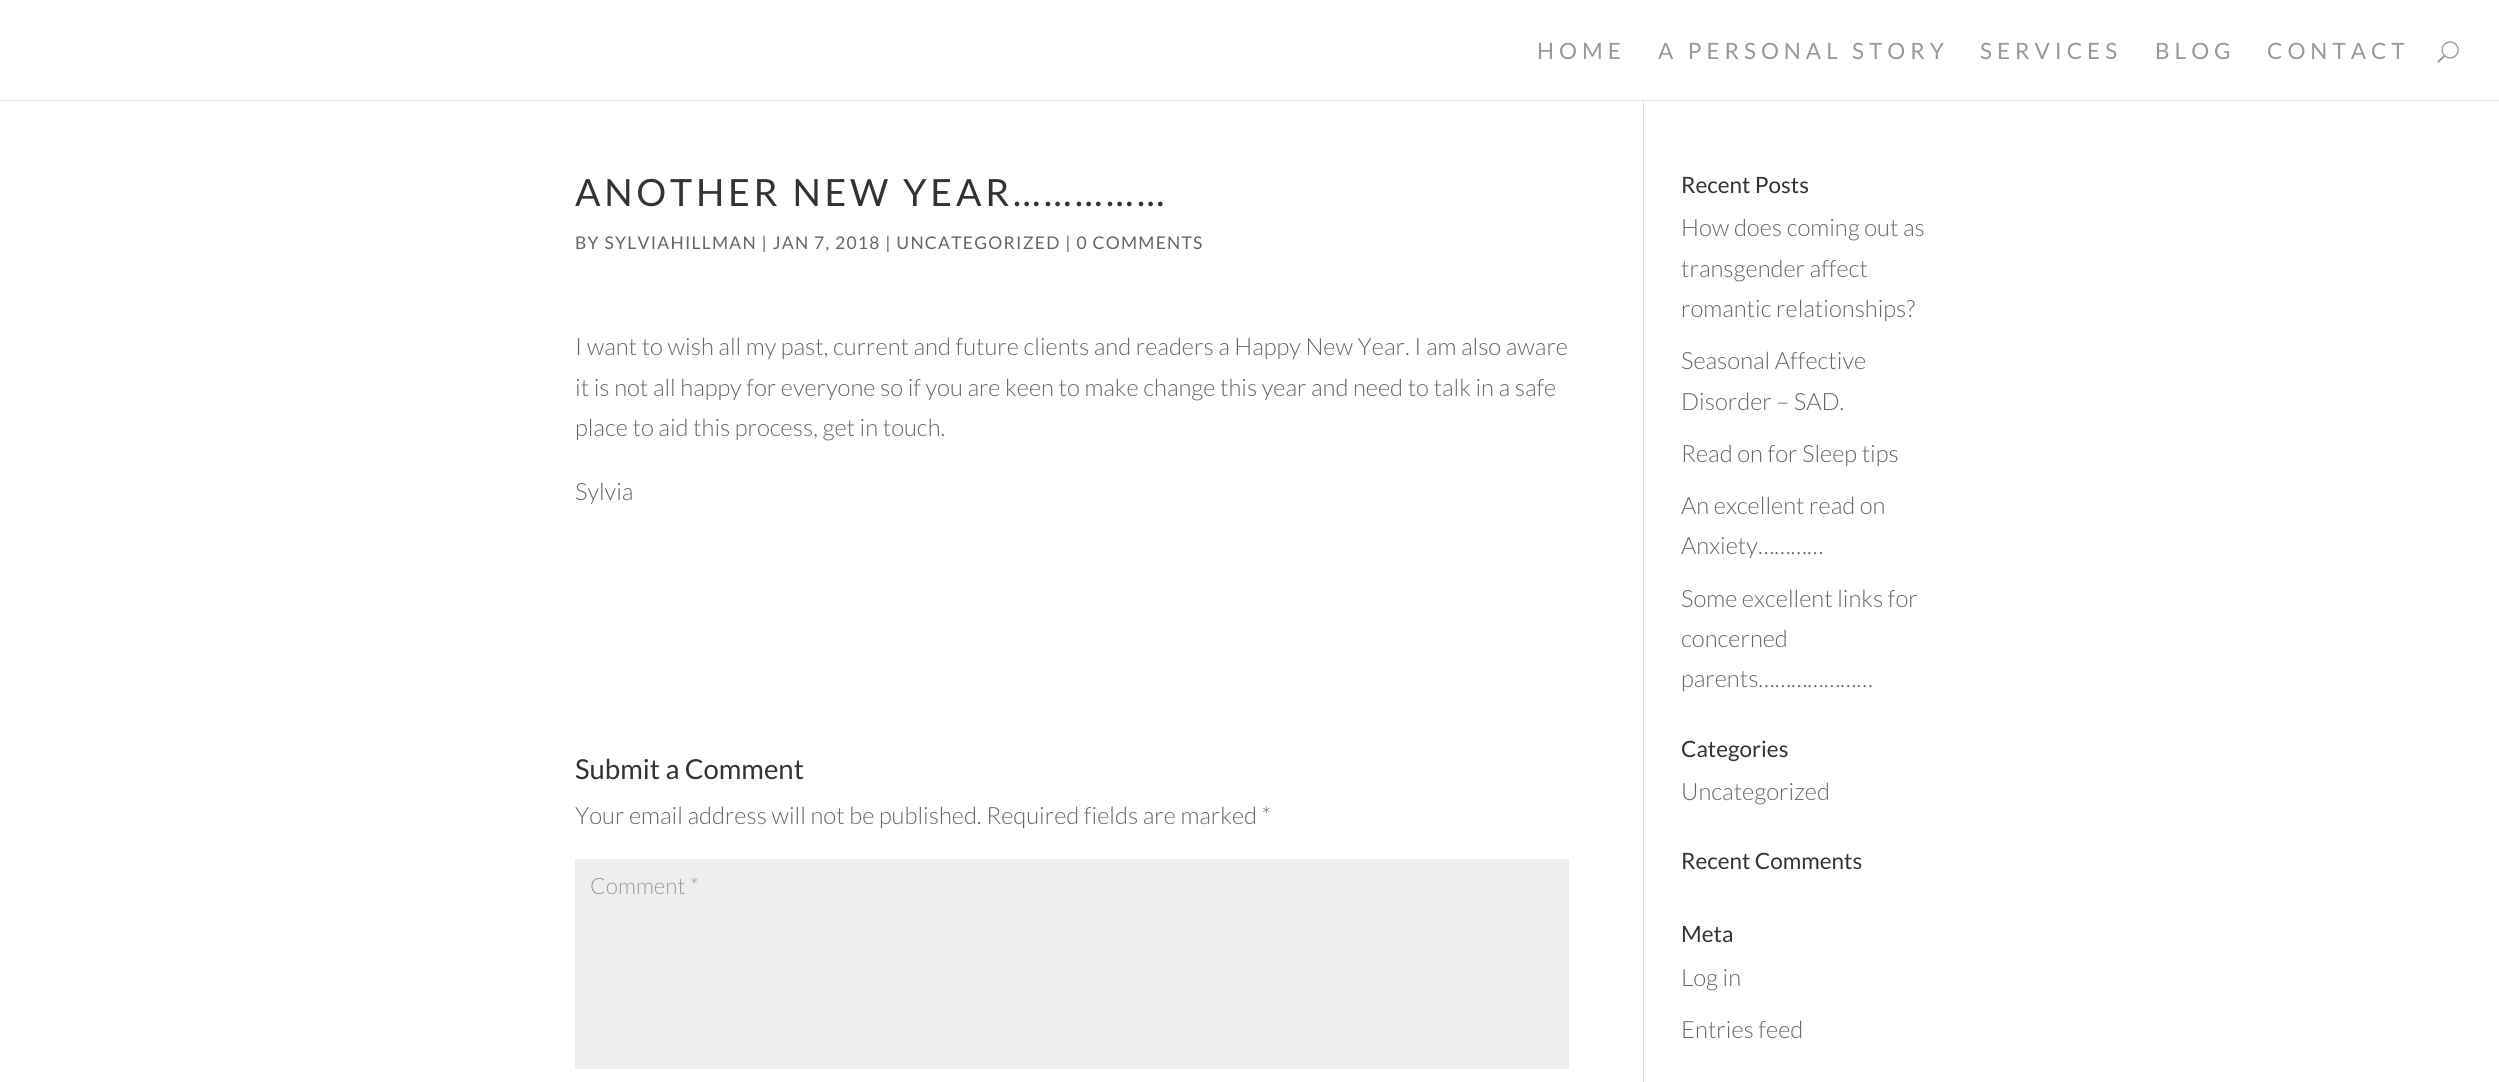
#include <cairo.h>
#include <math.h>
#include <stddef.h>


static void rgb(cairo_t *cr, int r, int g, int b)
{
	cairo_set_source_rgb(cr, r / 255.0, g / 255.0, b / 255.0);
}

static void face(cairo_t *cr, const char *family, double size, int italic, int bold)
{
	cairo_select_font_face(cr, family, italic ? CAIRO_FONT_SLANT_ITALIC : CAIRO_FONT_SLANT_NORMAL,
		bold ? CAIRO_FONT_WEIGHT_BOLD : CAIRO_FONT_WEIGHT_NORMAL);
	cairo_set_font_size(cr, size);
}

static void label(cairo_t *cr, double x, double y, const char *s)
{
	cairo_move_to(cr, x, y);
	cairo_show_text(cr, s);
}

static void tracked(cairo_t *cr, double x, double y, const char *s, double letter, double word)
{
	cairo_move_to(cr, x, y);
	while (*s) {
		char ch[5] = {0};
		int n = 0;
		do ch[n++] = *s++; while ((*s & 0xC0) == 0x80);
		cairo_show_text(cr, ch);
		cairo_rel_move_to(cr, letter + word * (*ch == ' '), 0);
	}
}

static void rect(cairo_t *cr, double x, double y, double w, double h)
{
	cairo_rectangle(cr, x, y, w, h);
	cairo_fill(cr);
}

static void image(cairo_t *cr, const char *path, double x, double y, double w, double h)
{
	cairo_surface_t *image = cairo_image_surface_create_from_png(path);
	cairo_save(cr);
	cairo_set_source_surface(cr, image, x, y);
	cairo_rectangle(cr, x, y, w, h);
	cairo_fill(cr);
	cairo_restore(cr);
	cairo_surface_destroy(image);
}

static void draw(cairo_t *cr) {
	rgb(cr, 255, 255, 255);
	cairo_paint(cr);
	face(cr, "Lato", 22.5, 0, 0);
	rgb(cr, 153, 153, 153);
	tracked(cr, 1537, 59, "HOME", 5, 0);
	tracked(cr, 1658, 59, "A PERSONAL STORY", 5, 0);
	tracked(cr, 1980, 59, "SERVICES", 5, 0);
	tracked(cr, 2155, 59, "BLOG", 5, 0);
	tracked(cr, 2267, 59, "CONTACT", 5, 0);
	image(cr, "image0.png", 2437, 41, 22, 22);
	rgb(cr, 230, 230, 230);
	rect(cr, 0, 100, 2499, 1);
	rgb(cr, 226, 226, 226);
	rect(cr, 1643, 100, 1, 982);
	rgb(cr, 203, 203, 203);
	rect(cr, 1643, 100, 1, 1);
	face(cr, "Lato", 37.5, 0, 0);
	rgb(cr, 51, 51, 51);
	tracked(cr, 575, 206, "ANOTHER NEW YEAR……………", 3.75, 0);
	face(cr, "Lato", 17.5, 0, 0);
	rgb(cr, 102, 102, 102);
	tracked(cr, 575, 249, "BY SYLVIAHILLMAN | JAN 7, 2018 | UNCATEGORIZED | 0 COMMENTS", 1.25, 0);
	face(cr, "Lato Light", 23.75, 0, 0);
	label(cr, 575, 355, "I want to wish all my past, current and future clients and readers a Happy New Year. I am also aware");
	label(cr, 575, 396, "it is not all happy for everyone so if you are keen to make change this year and need to talk in a safe");
	label(cr, 575, 436, "place to aid this process, get in touch.");
	label(cr, 575, 500, "Sylvia");
	face(cr, "Lato", 27.5, 0, 0);
	rgb(cr, 51, 51, 51);
	label(cr, 575, 779, "Submit a Comment");
	face(cr, "Lato Light", 23.75, 0, 0);
	rgb(cr, 102, 102, 102);
	label(cr, 575, 824, "Your email address will not be published. Required fields are marked *");
	rgb(cr, 238, 238, 238);
	rect(cr, 575, 859, 994, 210);
	face(cr, "Lato Light", 22.5, 0, 0);
	rgb(cr, 153, 153, 153);
	label(cr, 590, 894, "Comment *");
	face(cr, "Lato", 22.5, 0, 0);
	rgb(cr, 51, 51, 51);
	label(cr, 1681, 193, "Recent Posts");
	face(cr, "Lato Light", 23.75, 0, 0);
	rgb(cr, 102, 102, 102);
	label(cr, 1681, 236, "How does coming out as");
	label(cr, 1681, 277, "transgender affect");
	label(cr, 1681, 317, "romantic relationships?");
	label(cr, 1681, 369, "Seasonal Affective");
	label(cr, 1681, 410, "Disorder – SAD.");
	label(cr, 1681, 462, "Read on for Sleep tips");
	label(cr, 1681, 514, "An excellent read on");
	label(cr, 1681, 554, "Anxiety…………");
	label(cr, 1681, 607, "Some excellent links for");
	label(cr, 1681, 647, "concerned");
	label(cr, 1681, 687, "parents…………………");
	face(cr, "Lato", 22.5, 0, 0);
	rgb(cr, 51, 51, 51);
	label(cr, 1681, 757, "Categories");
	face(cr, "Lato Light", 23.75, 0, 0);
	rgb(cr, 102, 102, 102);
	label(cr, 1681, 800, "Uncategorized");
	face(cr, "Lato", 22.5, 0, 0);
	rgb(cr, 51, 51, 51);
	label(cr, 1681, 869, "Recent Comments");
	label(cr, 1681, 942, "Meta");
	face(cr, "Lato Light", 23.75, 0, 0);
	rgb(cr, 102, 102, 102);
	label(cr, 1681, 986, "Log in");
	label(cr, 1681, 1038, "Entries feed");
}

int main(void) {
	cairo_surface_t *surface = cairo_image_surface_create(CAIRO_FORMAT_RGB24, 2499, 1082);
	cairo_t *cr = cairo_create(surface);
	cairo_font_options_t *options = cairo_font_options_create();
	cairo_font_options_set_hint_metrics(options, CAIRO_HINT_METRICS_OFF);
	cairo_font_options_set_hint_style(options, CAIRO_HINT_STYLE_NONE);
	cairo_set_font_options(cr, options);
	cairo_set_miter_limit(cr, 4);
	draw(cr);
	cairo_surface_write_to_png(surface, "render.png");
	cairo_font_options_destroy(options);
	cairo_destroy(cr);
	cairo_surface_destroy(surface);
	return 0;
}
